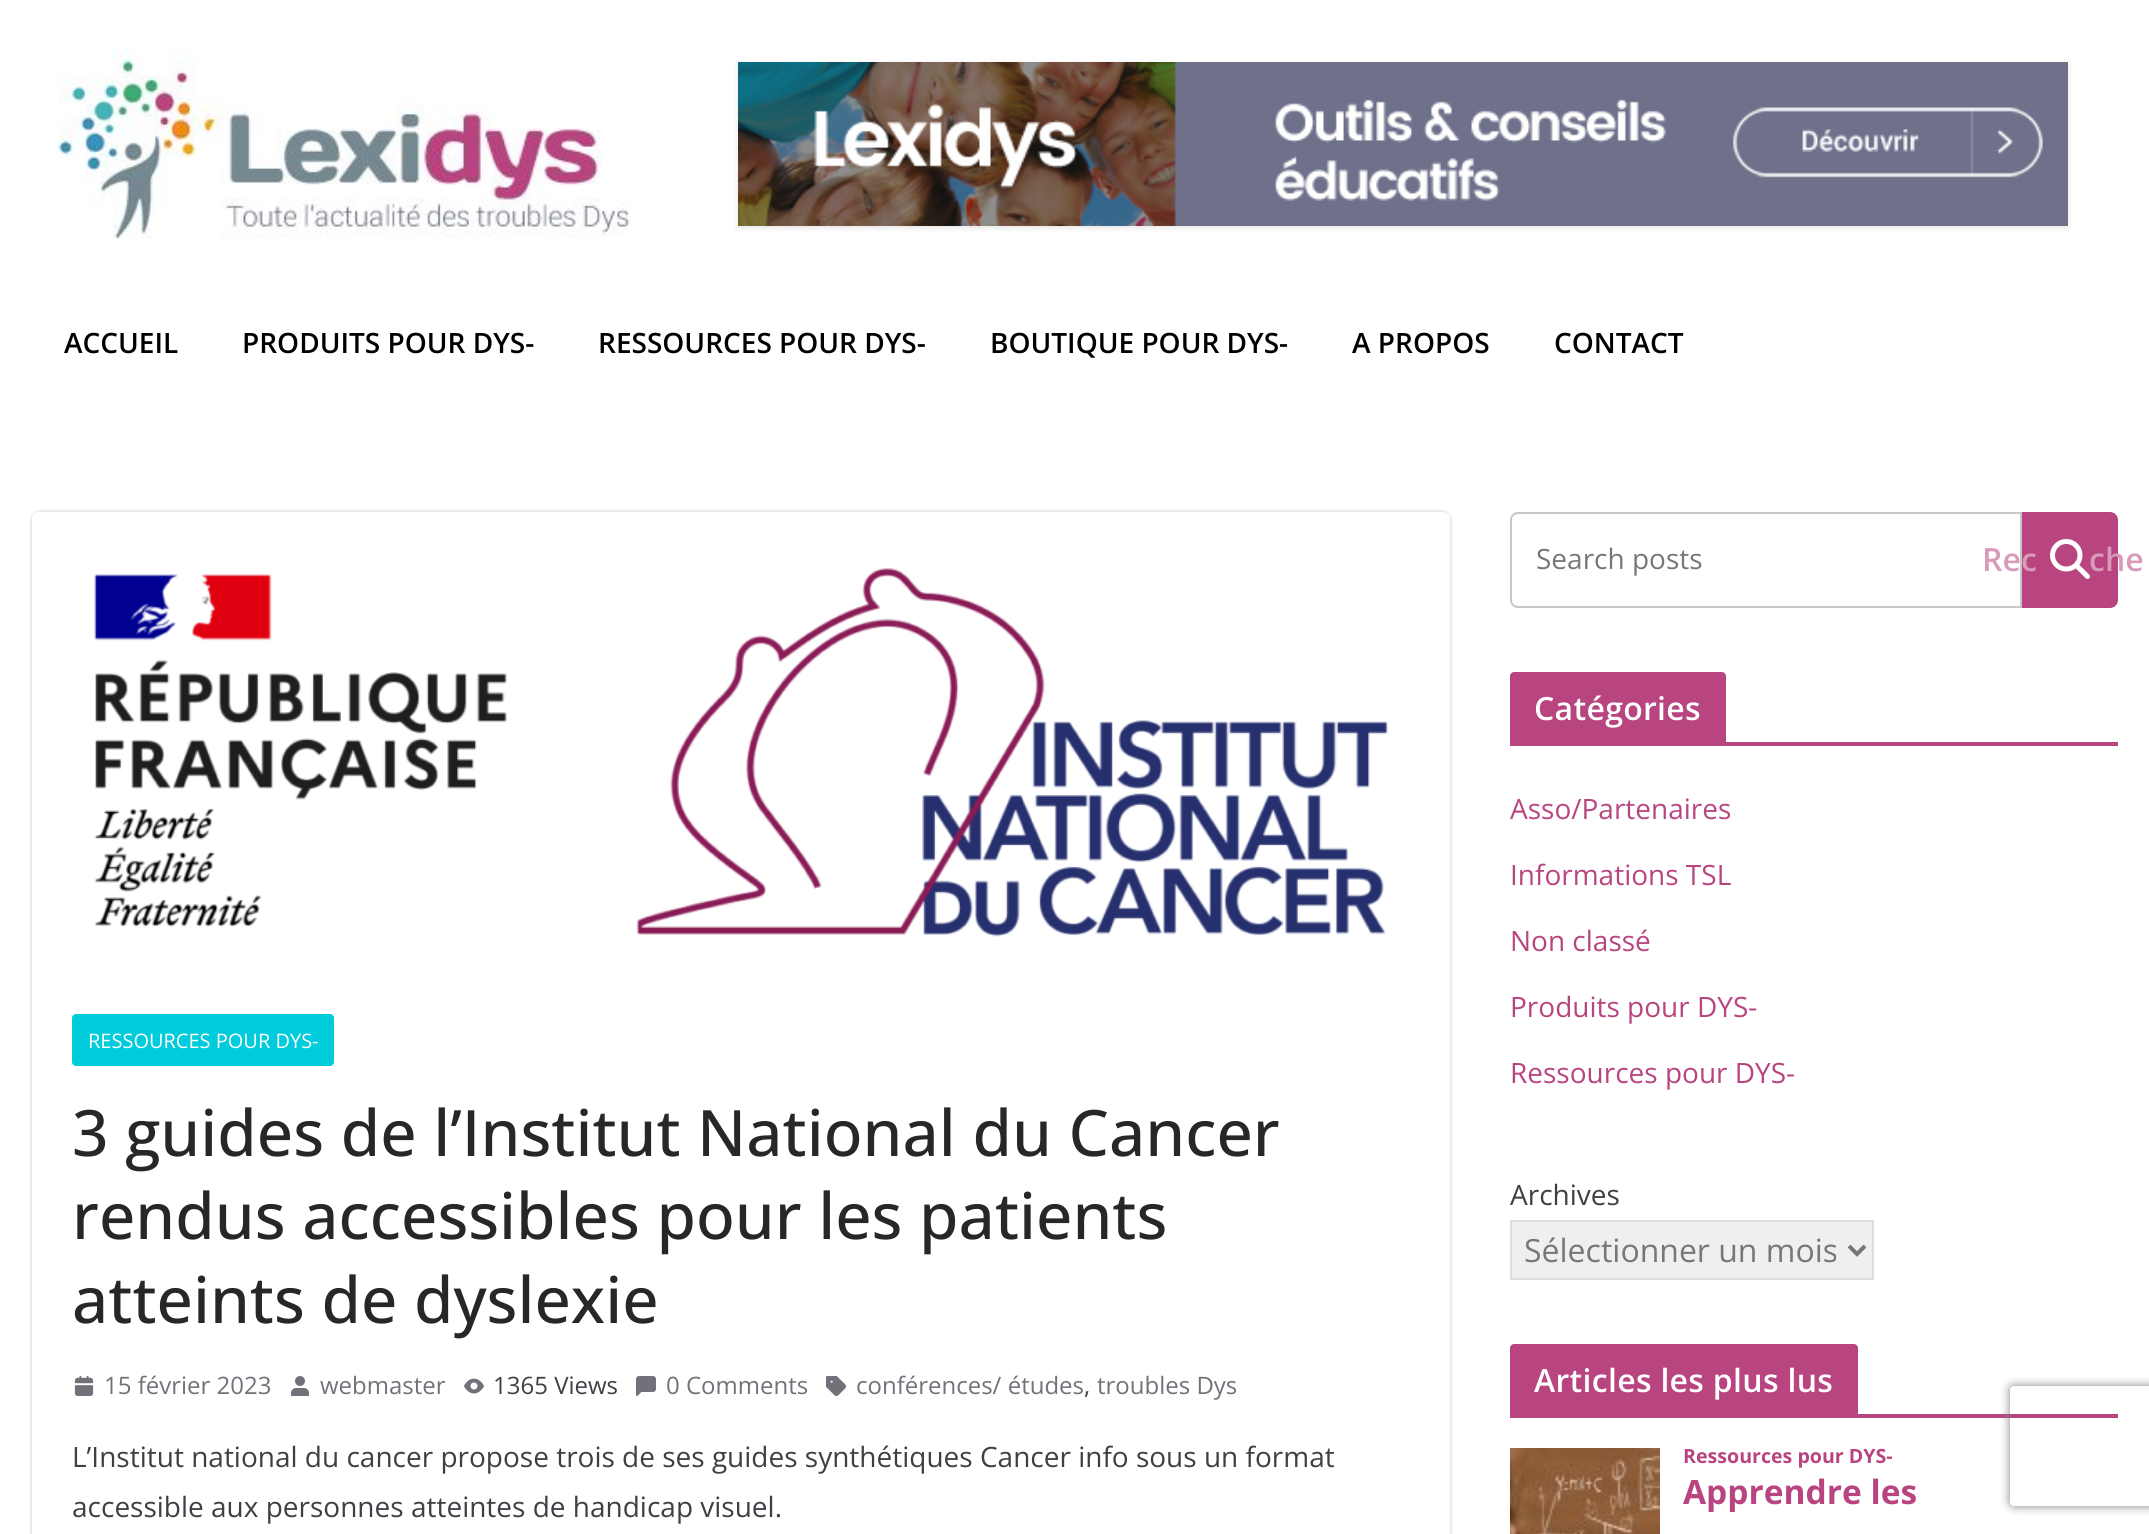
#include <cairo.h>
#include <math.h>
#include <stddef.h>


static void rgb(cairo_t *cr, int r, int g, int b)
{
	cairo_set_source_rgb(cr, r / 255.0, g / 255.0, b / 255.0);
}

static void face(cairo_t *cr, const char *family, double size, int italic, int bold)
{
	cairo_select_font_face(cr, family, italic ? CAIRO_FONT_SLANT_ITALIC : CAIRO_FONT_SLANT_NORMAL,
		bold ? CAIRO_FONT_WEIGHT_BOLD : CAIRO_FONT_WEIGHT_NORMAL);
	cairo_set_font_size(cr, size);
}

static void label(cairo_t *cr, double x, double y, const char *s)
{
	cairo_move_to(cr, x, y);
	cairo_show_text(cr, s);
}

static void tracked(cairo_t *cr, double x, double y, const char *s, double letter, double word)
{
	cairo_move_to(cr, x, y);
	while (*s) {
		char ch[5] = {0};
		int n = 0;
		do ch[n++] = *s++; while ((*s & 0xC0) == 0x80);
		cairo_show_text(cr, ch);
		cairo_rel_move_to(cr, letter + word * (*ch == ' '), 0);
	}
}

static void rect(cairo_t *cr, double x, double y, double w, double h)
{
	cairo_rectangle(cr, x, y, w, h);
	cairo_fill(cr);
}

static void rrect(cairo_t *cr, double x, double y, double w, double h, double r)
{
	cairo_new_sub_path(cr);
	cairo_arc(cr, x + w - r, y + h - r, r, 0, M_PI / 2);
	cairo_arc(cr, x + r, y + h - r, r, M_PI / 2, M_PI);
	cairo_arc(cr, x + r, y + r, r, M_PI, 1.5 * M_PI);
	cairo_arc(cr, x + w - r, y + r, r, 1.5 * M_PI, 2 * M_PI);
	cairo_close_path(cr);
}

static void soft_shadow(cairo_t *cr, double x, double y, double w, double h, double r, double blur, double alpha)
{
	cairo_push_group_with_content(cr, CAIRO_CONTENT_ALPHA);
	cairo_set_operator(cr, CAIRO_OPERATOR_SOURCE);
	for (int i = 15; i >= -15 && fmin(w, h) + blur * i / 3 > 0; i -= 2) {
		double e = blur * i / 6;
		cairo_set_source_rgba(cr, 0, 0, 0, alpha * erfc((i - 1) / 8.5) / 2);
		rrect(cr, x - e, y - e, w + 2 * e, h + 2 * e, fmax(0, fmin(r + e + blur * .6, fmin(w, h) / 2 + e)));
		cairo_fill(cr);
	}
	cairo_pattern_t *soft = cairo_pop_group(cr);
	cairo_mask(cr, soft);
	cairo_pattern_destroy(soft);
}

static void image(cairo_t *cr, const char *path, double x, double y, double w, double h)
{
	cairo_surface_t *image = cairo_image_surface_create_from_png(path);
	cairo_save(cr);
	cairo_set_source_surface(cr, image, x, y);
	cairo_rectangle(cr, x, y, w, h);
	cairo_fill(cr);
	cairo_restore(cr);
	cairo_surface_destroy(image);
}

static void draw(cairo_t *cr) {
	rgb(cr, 255, 255, 255);
	cairo_paint(cr);
	image(cr, "image0.png", 57, 48, 574, 191);
	rgb(cr, 0, 0, 0);
	soft_shadow(cr, 738, 64, 1330, 164, 0, 3, 0.1);
	image(cr, "image1.png", 738, 62, 1330, 164);
	face(cr, "Open Sans SemiBold", 28, 0, 0);
	rgb(cr, 0, 0, 0);
	label(cr, 64, 353, "ACCUEIL");
	label(cr, 242, 353, "PRODUITS POUR DYS-");
	label(cr, 598, 353, "RESSOURCES POUR DYS-");
	label(cr, 990, 353, "BOUTIQUE POUR DYS-");
	label(cr, 1352, 353, "A PROPOS");
	label(cr, 1554, 353, "CONTACT");
	cairo_save(cr);
	cairo_set_fill_rule(cr, CAIRO_FILL_RULE_EVEN_ODD);
	cairo_new_path(cr);
	cairo_move_to(cr, 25, 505);
	cairo_line_to(cr, 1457, 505);
	cairo_line_to(cr, 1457, 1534);
	cairo_line_to(cr, 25, 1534);
	cairo_close_path(cr);
	cairo_move_to(cr, 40, 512);
	cairo_line_to(cr, 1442, 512);
	cairo_curve_to(cr, 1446.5, 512, 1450, 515.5, 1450, 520);
	cairo_line_to(cr, 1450, 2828);
	cairo_curve_to(cr, 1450, 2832.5, 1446.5, 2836, 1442, 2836);
	cairo_line_to(cr, 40, 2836);
	cairo_curve_to(cr, 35.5, 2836, 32, 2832.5, 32, 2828);
	cairo_line_to(cr, 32, 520);
	cairo_curve_to(cr, 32, 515.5, 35.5, 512, 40, 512);
	cairo_close_path(cr);
	cairo_clip(cr);
	rgb(cr, 0, 0, 0);
	soft_shadow(cr, 32, 512, 1418, 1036, 8, 2, 0.24);
	cairo_restore(cr);
	image(cr, "image2.png", 32, 512, 1418, 425);
	rgb(cr, 0, 204, 219);
	rrect(cr, 72, 1014, 262, 52, 4);
	cairo_fill(cr);
	face(cr, "Open Sans", 20, 0, 0);
	rgb(cr, 255, 255, 255);
	label(cr, 88, 1048, "RESSOURCES POUR DYS-");
	face(cr, "Open Sans Medium", 64, 0, 0);
	rgb(cr, 39, 39, 42);
	label(cr, 72, 1156, "3 guides de l’Institut National du Cancer");
	label(cr, 72, 1239, "rendus accessibles pour les patients");
	label(cr, 72, 1323, "atteints de dyslexie");
	image(cr, "image3.png", 74, 1376, 20, 20);
	face(cr, "Open Sans", 24, 0, 0);
	rgb(cr, 113, 113, 122);
	label(cr, 104, 1394, "15 février 2023");
	image(cr, "image4.png", 291, 1376, 18, 20);
	label(cr, 320, 1394, "webmaster");
	image(cr, "image5.png", 464, 1378, 20, 16);
	rgb(cr, 63, 63, 70);
	label(cr, 493, 1394, "1365 Views");
	image(cr, "image6.png", 636, 1376, 20, 20);
	rgb(cr, 113, 113, 122);
	label(cr, 666, 1394, "0 Comments");
	image(cr, "image7.png", 826, 1376, 20, 20);
	label(cr, 856, 1394, "conférences/ études");
	rgb(cr, 63, 63, 70);
	label(cr, 1084, 1394, ",");
	rgb(cr, 113, 113, 122);
	label(cr, 1097, 1394, "troubles Dys");
	face(cr, "Open Sans", 28, 0, 0);
	rgb(cr, 63, 63, 70);
	label(cr, 72, 1467, "L’Institut national du cancer propose trois de ses guides synthétiques Cancer info sous un format");
	label(cr, 72, 1517, "accessible aux personnes atteintes de handicap visuel.");
	cairo_new_path(cr);
	cairo_move_to(cr, 1518, 513);
	cairo_line_to(cr, 2021, 513);
	cairo_line_to(cr, 2021, 607);
	cairo_line_to(cr, 1518, 607);
	cairo_curve_to(cr, 1514, 607, 1511, 604, 1511, 600);
	cairo_line_to(cr, 1511, 520);
	cairo_curve_to(cr, 1511, 516, 1514, 513, 1518, 513);
	cairo_close_path(cr);
	rgb(cr, 199, 199, 199);
	cairo_stroke(cr);
	rgb(cr, 119, 119, 119);
	label(cr, 1536, 569, "Search posts");
	rgb(cr, 185, 69, 128);
	cairo_new_path(cr);
	cairo_move_to(cr, 2022, 512);
	cairo_line_to(cr, 2110, 512);
	cairo_curve_to(cr, 2114.5, 512, 2118, 515.5, 2118, 520);
	cairo_line_to(cr, 2118, 600);
	cairo_curve_to(cr, 2118, 604.5, 2114.5, 608, 2110, 608);
	cairo_line_to(cr, 2022, 608);
	cairo_close_path(cr);
	cairo_fill(cr);
	face(cr, "Open Sans SemiBold", 32, 0, 0);
	rgb(cr, 217, 153, 185);
	label(cr, 1982, 571, "Rec");
	image(cr, "image8.png", 2050, 539, 40, 40);
	label(cr, 2089, 571, "che");
	rgb(cr, 185, 69, 128);
	rect(cr, 1510, 742, 608, 4);
	cairo_new_path(cr);
	cairo_move_to(cr, 1514, 672);
	cairo_line_to(cr, 1722, 672);
	cairo_curve_to(cr, 1724, 672, 1726, 674, 1726, 676);
	cairo_line_to(cr, 1726, 742);
	cairo_line_to(cr, 1510, 742);
	cairo_line_to(cr, 1510, 676);
	cairo_curve_to(cr, 1510, 674, 1512, 672, 1514, 672);
	cairo_close_path(cr);
	cairo_fill(cr);
	rgb(cr, 255, 255, 255);
	tracked(cr, 1534, 720, "Catégories", 0.3, 0);
	face(cr, "Open Sans", 28, 0, 0);
	rgb(cr, 185, 69, 128);
	label(cr, 1510, 819, "Asso/Partenaires");
	label(cr, 1510, 885, "Informations TSL");
	label(cr, 1510, 951, "Non classé");
	label(cr, 1510, 1017, "Produits pour DYS-");
	label(cr, 1510, 1083, "Ressources pour DYS-");
	rgb(cr, 63, 63, 70);
	label(cr, 1510, 1205, "Archives");
	rgb(cr, 239, 239, 239);
	cairo_rectangle(cr, 1511, 1221, 362, 58);
	cairo_fill_preserve(cr);
	rgb(cr, 221, 221, 221);
	cairo_stroke(cr);
	cairo_new_path(cr);
	cairo_move_to(cr, 1849, 1246);
	cairo_line_to(cr, 1857, 1254);
	cairo_line_to(cr, 1865, 1246);
	rgb(cr, 119, 119, 119);
	cairo_set_line_width(cr, 4);
	cairo_stroke(cr);
	cairo_save(cr);
	cairo_rectangle(cr, 1524, 1226, 312, 48);
	cairo_clip(cr);
	face(cr, "Open Sans", 32, 0, 0);
	label(cr, 1524, 1262, "Sélectionner un mois");
	cairo_restore(cr);
	rgb(cr, 185, 69, 128);
	rect(cr, 1510, 1414, 608, 4);
	cairo_new_path(cr);
	cairo_move_to(cr, 1514, 1344);
	cairo_line_to(cr, 1854, 1344);
	cairo_curve_to(cr, 1856, 1344, 1858, 1346, 1858, 1348);
	cairo_line_to(cr, 1858, 1414);
	cairo_line_to(cr, 1510, 1414);
	cairo_line_to(cr, 1510, 1348);
	cairo_curve_to(cr, 1510, 1346, 1512, 1344, 1514, 1344);
	cairo_close_path(cr);
	cairo_fill(cr);
	face(cr, "Open Sans SemiBold", 32, 0, 0);
	rgb(cr, 255, 255, 255);
	tracked(cr, 1534, 1392, "Articles les plus lus", 0.3, 0);
	image(cr, "image9.png", 1510, 1448, 150, 86);
	face(cr, "Open Sans", 19.6, 0, 1);
	rgb(cr, 185, 69, 128);
	label(cr, 1683, 1463, "Ressources pour DYS-");
	face(cr, "Open Sans", 33.5, 0, 1);
	label(cr, 1683, 1504, "Apprendre les");
	cairo_save(cr);
	cairo_set_fill_rule(cr, CAIRO_FILL_RULE_EVEN_ODD);
	cairo_new_path(cr);
	cairo_move_to(cr, 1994, 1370);
	cairo_line_to(cr, 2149, 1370);
	cairo_line_to(cr, 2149, 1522);
	cairo_line_to(cr, 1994, 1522);
	cairo_close_path(cr);
	cairo_move_to(cr, 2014, 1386);
	cairo_line_to(cr, 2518, 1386);
	cairo_curve_to(cr, 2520, 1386, 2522, 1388, 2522, 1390);
	cairo_line_to(cr, 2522, 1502);
	cairo_curve_to(cr, 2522, 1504, 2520, 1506, 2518, 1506);
	cairo_line_to(cr, 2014, 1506);
	cairo_curve_to(cr, 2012, 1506, 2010, 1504, 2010, 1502);
	cairo_line_to(cr, 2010, 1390);
	cairo_curve_to(cr, 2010, 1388, 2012, 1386, 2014, 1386);
	cairo_close_path(cr);
	cairo_clip(cr);
	rgb(cr, 128, 128, 128);
	soft_shadow(cr, 2010, 1386, 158, 120, 4, 5, 1);
	cairo_restore(cr);
}

int main(void) {
	cairo_surface_t *surface = cairo_image_surface_create(CAIRO_FORMAT_RGB24, 2149, 1534);
	cairo_t *cr = cairo_create(surface);
	cairo_font_options_t *options = cairo_font_options_create();
	cairo_font_options_set_hint_metrics(options, CAIRO_HINT_METRICS_OFF);
	cairo_font_options_set_hint_style(options, CAIRO_HINT_STYLE_NONE);
	cairo_set_font_options(cr, options);
	cairo_set_miter_limit(cr, 4);
	draw(cr);
	cairo_surface_write_to_png(surface, "render.png");
	cairo_font_options_destroy(options);
	cairo_destroy(cr);
	cairo_surface_destroy(surface);
	return 0;
}
